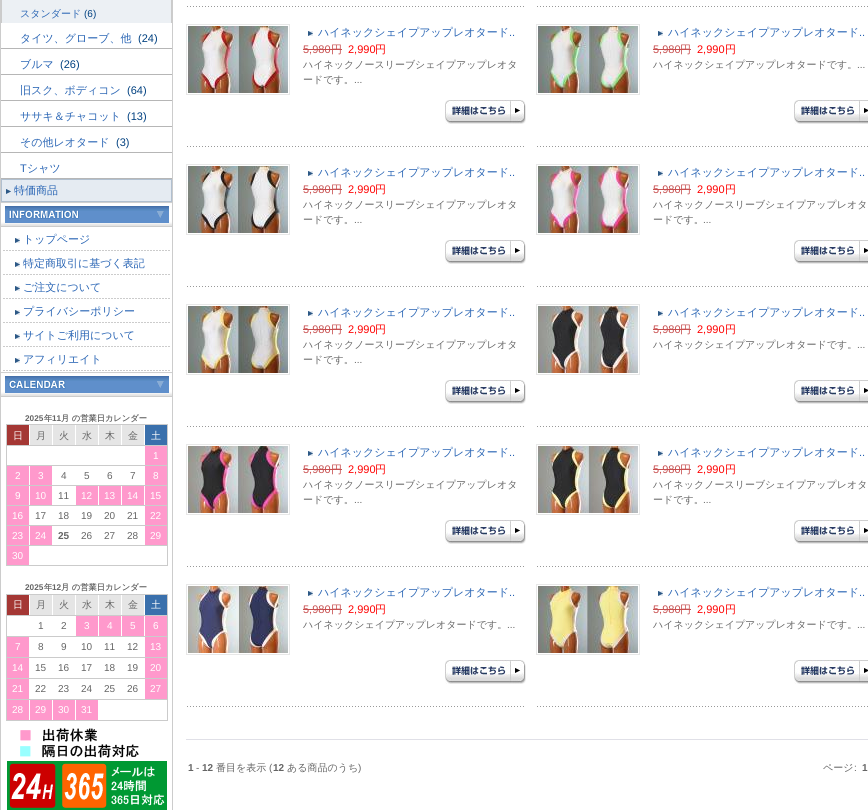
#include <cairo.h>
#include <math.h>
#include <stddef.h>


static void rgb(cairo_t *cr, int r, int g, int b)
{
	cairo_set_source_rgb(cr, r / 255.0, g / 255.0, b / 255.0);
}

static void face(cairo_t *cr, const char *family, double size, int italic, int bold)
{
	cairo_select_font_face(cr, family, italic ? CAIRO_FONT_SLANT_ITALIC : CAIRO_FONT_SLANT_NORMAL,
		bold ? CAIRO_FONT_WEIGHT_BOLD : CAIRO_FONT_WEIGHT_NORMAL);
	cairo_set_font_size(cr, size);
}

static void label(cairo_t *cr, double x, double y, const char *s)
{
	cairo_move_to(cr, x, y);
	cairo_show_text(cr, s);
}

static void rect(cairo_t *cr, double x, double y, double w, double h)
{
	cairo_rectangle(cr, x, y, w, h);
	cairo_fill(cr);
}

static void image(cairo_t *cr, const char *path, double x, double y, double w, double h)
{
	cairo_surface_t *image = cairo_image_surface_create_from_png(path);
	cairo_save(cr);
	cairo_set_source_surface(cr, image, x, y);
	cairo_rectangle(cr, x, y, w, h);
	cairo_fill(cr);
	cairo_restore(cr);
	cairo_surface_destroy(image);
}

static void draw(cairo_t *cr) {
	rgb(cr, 255, 255, 255);
	cairo_paint(cr);
	rgb(cr, 204, 204, 204);
	rect(cr, 0, 0, 1, 810);
	rect(cr, 172, 0, 1, 810);
	rgb(cr, 236, 240, 244);
	rect(cr, 1, 0, 171, 5);
	rgb(cr, 203, 203, 203);
	rect(cr, 171, 0, 1, 23);
	rect(cr, 1, 0, 1, 23);
	rgb(cr, 236, 240, 244);
	rect(cr, 2, 5, 169, 18);
	face(cr, "WenQuanYi Zen Hei Medium", 10, 0, 0);
	rgb(cr, 40, 100, 180);
	label(cr, 20, 17, "スタンダード");
	face(cr, "Liberation Sans", 10, 0, 0);
	rgb(cr, 0, 64, 128);
	label(cr, 84, 17, "(6)");
	face(cr, "WenQuanYi Zen Hei Medium", 11, 0, 0);
	rgb(cr, 40, 100, 180);
	label(cr, 20, 42, "タイツ、グローブ、他");
	face(cr, "Liberation Sans", 11, 0, 0);
	rgb(cr, 0, 64, 128);
	label(cr, 138, 42, "(24)");
	rgb(cr, 182, 182, 182);
	rect(cr, 1, 48, 171, 1);
	face(cr, "WenQuanYi Zen Hei Medium", 11, 0, 0);
	rgb(cr, 40, 100, 180);
	label(cr, 20, 68, "ブルマ");
	face(cr, "Liberation Sans", 11, 0, 0);
	rgb(cr, 0, 64, 128);
	label(cr, 60, 68, "(26)");
	rgb(cr, 182, 182, 182);
	rect(cr, 1, 74, 171, 1);
	face(cr, "WenQuanYi Zen Hei Medium", 11, 0, 0);
	rgb(cr, 40, 100, 180);
	label(cr, 20, 94, "旧スク、ボディコン");
	face(cr, "Liberation Sans", 11, 0, 0);
	rgb(cr, 0, 64, 128);
	label(cr, 127, 94, "(64)");
	rgb(cr, 182, 182, 182);
	rect(cr, 1, 100, 171, 1);
	face(cr, "WenQuanYi Zen Hei Medium", 11, 0, 0);
	rgb(cr, 40, 100, 180);
	label(cr, 20, 120, "ササキ＆チャコット");
	face(cr, "Liberation Sans", 11, 0, 0);
	rgb(cr, 0, 64, 128);
	label(cr, 127, 120, "(13)");
	rgb(cr, 182, 182, 182);
	rect(cr, 1, 126, 171, 1);
	face(cr, "WenQuanYi Zen Hei Medium", 11, 0, 0);
	rgb(cr, 40, 100, 180);
	label(cr, 20, 146, "その他レオタード");
	face(cr, "Liberation Sans", 11, 0, 0);
	rgb(cr, 0, 64, 128);
	label(cr, 116, 146, "(3)");
	rgb(cr, 182, 182, 182);
	rect(cr, 1, 152, 171, 1);
	rgb(cr, 40, 100, 180);
	label(cr, 20, 172, "T");
	face(cr, "WenQuanYi Zen Hei Medium", 11, 0, 0);
	label(cr, 27, 172, "シャツ");
	rgb(cr, 182, 182, 182);
	rect(cr, 1, 178, 171, 1);
	rgb(cr, 229, 235, 242);
	cairo_rectangle(cr, 1.5, 179.5, 170, 22);
	cairo_fill_preserve(cr);
	rgb(cr, 176, 191, 207);
	cairo_set_line_width(cr, 1);
	cairo_stroke(cr);
	image(cr, "image0.png", 6, 189, 5, 5);
	rgb(cr, 40, 100, 180);
	label(cr, 14, 194, "特価商品");
	image(cr, "image1.png", 1, 202, 171, 25);
	image(cr, "image2.png", 5, 206, 164, 17);
	image(cr, "image3.png", 3, 250, 167, 1);
	image(cr, "image0.png", 15, 238, 5, 5);
	label(cr, 23, 243, "トップページ");
	image(cr, "image3.png", 3, 274, 167, 1);
	image(cr, "image0.png", 15, 262, 5, 5);
	label(cr, 23, 267, "特定商取引に基づく表記");
	image(cr, "image3.png", 3, 298, 167, 1);
	image(cr, "image0.png", 15, 286, 5, 5);
	label(cr, 23, 291, "ご注文について");
	image(cr, "image3.png", 3, 322, 167, 1);
	image(cr, "image0.png", 15, 310, 5, 5);
	label(cr, 23, 315, "プライバシーポリシー");
	image(cr, "image3.png", 3, 346, 167, 1);
	image(cr, "image0.png", 15, 334, 5, 5);
	label(cr, 23, 339, "サイトご利用について");
	image(cr, "image3.png", 3, 370, 167, 1);
	image(cr, "image0.png", 15, 358, 5, 5);
	label(cr, 23, 363, "アフィリエイト");
	image(cr, "image1.png", 1, 372, 171, 25);
	image(cr, "image4.png", 5, 376, 164, 17);
	face(cr, "Liberation Sans", 8.25, 0, 1);
	rgb(cr, 101, 101, 101);
	label(cr, 25, 421, "2025");
	face(cr, "WenQuanYi Zen Hei", 8.25, 0, 1);
	label(cr, 44, 421, "年");
	face(cr, "Liberation Sans", 8.25, 0, 1);
	label(cr, 52, 421, "11");
	face(cr, "WenQuanYi Zen Hei", 8.25, 0, 1);
	label(cr, 61, 421, "月 の営業日カレンダー");
	rgb(cr, 203, 203, 203);
	rect(cr, 6, 424, 162, 142);
	rgb(cr, 255, 255, 255);
	rect(cr, 29, 425, 116, 20);
	rgb(cr, 164, 55, 52);
	rect(cr, 7, 425, 22, 20);
	face(cr, "WenQuanYi Zen Hei Medium", 10, 0, 0);
	rgb(cr, 255, 255, 255);
	label(cr, 13, 439, "日");
	rgb(cr, 229, 229, 229);
	rect(cr, 30, 425, 22, 20);
	rgb(cr, 101, 101, 101);
	label(cr, 36, 439, "月");
	rgb(cr, 229, 229, 229);
	rect(cr, 53, 425, 22, 20);
	rgb(cr, 101, 101, 101);
	label(cr, 59, 439, "火");
	rgb(cr, 229, 229, 229);
	rect(cr, 76, 425, 22, 20);
	rgb(cr, 101, 101, 101);
	label(cr, 82, 439, "水");
	rgb(cr, 229, 229, 229);
	rect(cr, 99, 425, 22, 20);
	rgb(cr, 101, 101, 101);
	label(cr, 105, 439, "木");
	rgb(cr, 229, 229, 229);
	rect(cr, 122, 425, 22, 20);
	rgb(cr, 101, 101, 101);
	label(cr, 128, 439, "金");
	rgb(cr, 58, 112, 172);
	rect(cr, 145, 425, 22, 20);
	rgb(cr, 255, 255, 255);
	label(cr, 151, 439, "土");
	rect(cr, 7, 446, 138, 19);
	rgb(cr, 255, 153, 204);
	rect(cr, 145, 446, 22, 19);
	face(cr, "Liberation Sans", 10, 0, 0);
	rgb(cr, 255, 255, 255);
	label(cr, 153, 459, "1");
	rect(cr, 29, 466, 116, 19);
	rgb(cr, 255, 153, 204);
	rect(cr, 7, 466, 22, 19);
	rgb(cr, 255, 255, 255);
	label(cr, 15, 479, "2");
	rgb(cr, 255, 153, 204);
	rect(cr, 30, 466, 22, 19);
	rgb(cr, 255, 255, 255);
	label(cr, 38, 479, "3");
	rgb(cr, 101, 101, 101);
	label(cr, 61, 479, "4");
	label(cr, 84, 479, "5");
	label(cr, 107, 479, "6");
	label(cr, 130, 479, "7");
	rgb(cr, 255, 153, 204);
	rect(cr, 145, 466, 22, 19);
	rgb(cr, 255, 255, 255);
	label(cr, 153, 479, "8");
	rect(cr, 29, 486, 116, 19);
	rgb(cr, 255, 153, 204);
	rect(cr, 7, 486, 22, 19);
	rgb(cr, 255, 255, 255);
	label(cr, 15, 499, "9");
	rgb(cr, 255, 153, 204);
	rect(cr, 30, 486, 22, 19);
	rgb(cr, 255, 255, 255);
	label(cr, 35, 499, "10");
	rgb(cr, 101, 101, 101);
	label(cr, 58, 499, "11");
	rgb(cr, 255, 153, 204);
	rect(cr, 76, 486, 22, 19);
	rgb(cr, 255, 255, 255);
	label(cr, 81, 499, "12");
	rgb(cr, 255, 153, 204);
	rect(cr, 99, 486, 22, 19);
	rgb(cr, 255, 255, 255);
	label(cr, 104, 499, "13");
	rgb(cr, 255, 153, 204);
	rect(cr, 122, 486, 22, 19);
	rgb(cr, 255, 255, 255);
	label(cr, 127, 499, "14");
	rgb(cr, 255, 153, 204);
	rect(cr, 145, 486, 22, 19);
	rgb(cr, 255, 255, 255);
	label(cr, 150, 499, "15");
	rect(cr, 29, 506, 116, 19);
	rgb(cr, 255, 153, 204);
	rect(cr, 7, 506, 22, 19);
	rgb(cr, 255, 255, 255);
	label(cr, 12, 519, "16");
	rgb(cr, 101, 101, 101);
	label(cr, 35, 519, "17");
	label(cr, 58, 519, "18");
	label(cr, 81, 519, "19");
	label(cr, 104, 519, "20");
	label(cr, 127, 519, "21");
	rgb(cr, 255, 153, 204);
	rect(cr, 145, 506, 22, 19);
	rgb(cr, 255, 255, 255);
	label(cr, 150, 519, "22");
	rect(cr, 29, 526, 116, 19);
	rgb(cr, 255, 153, 204);
	rect(cr, 7, 526, 22, 19);
	rgb(cr, 255, 255, 255);
	label(cr, 12, 539, "23");
	rgb(cr, 255, 153, 204);
	rect(cr, 30, 526, 22, 19);
	rgb(cr, 255, 255, 255);
	label(cr, 35, 539, "24");
	face(cr, "Liberation Sans", 10, 0, 1);
	rgb(cr, 101, 101, 101);
	label(cr, 58, 539, "25");
	face(cr, "Liberation Sans", 10, 0, 0);
	label(cr, 81, 539, "26");
	label(cr, 104, 539, "27");
	label(cr, 127, 539, "28");
	rgb(cr, 255, 153, 204);
	rect(cr, 145, 526, 22, 19);
	rgb(cr, 255, 255, 255);
	label(cr, 150, 539, "29");
	rect(cr, 29, 546, 138, 19);
	rgb(cr, 255, 153, 204);
	rect(cr, 7, 546, 22, 19);
	rgb(cr, 255, 255, 255);
	label(cr, 12, 559, "30");
	face(cr, "Liberation Sans", 8.25, 0, 1);
	rgb(cr, 101, 101, 101);
	label(cr, 25, 590, "2025");
	face(cr, "WenQuanYi Zen Hei", 8.25, 0, 1);
	label(cr, 44, 590, "年");
	face(cr, "Liberation Sans", 8.25, 0, 1);
	label(cr, 52, 590, "12");
	face(cr, "WenQuanYi Zen Hei", 8.25, 0, 1);
	label(cr, 61, 590, "月 の営業日カレンダー");
	rgb(cr, 203, 203, 203);
	rect(cr, 6, 594, 162, 127);
	rgb(cr, 255, 255, 255);
	rect(cr, 29, 595, 116, 20);
	rgb(cr, 164, 55, 52);
	rect(cr, 7, 595, 22, 20);
	face(cr, "WenQuanYi Zen Hei Medium", 10, 0, 0);
	rgb(cr, 255, 255, 255);
	label(cr, 13, 608, "日");
	rgb(cr, 229, 229, 229);
	rect(cr, 30, 595, 22, 20);
	rgb(cr, 101, 101, 101);
	label(cr, 36, 608, "月");
	rgb(cr, 229, 229, 229);
	rect(cr, 53, 595, 22, 20);
	rgb(cr, 101, 101, 101);
	label(cr, 59, 608, "火");
	rgb(cr, 229, 229, 229);
	rect(cr, 76, 595, 22, 20);
	rgb(cr, 101, 101, 101);
	label(cr, 82, 608, "水");
	rgb(cr, 229, 229, 229);
	rect(cr, 99, 595, 22, 20);
	rgb(cr, 101, 101, 101);
	label(cr, 105, 608, "木");
	rgb(cr, 229, 229, 229);
	rect(cr, 122, 595, 22, 20);
	rgb(cr, 101, 101, 101);
	label(cr, 128, 608, "金");
	rgb(cr, 58, 112, 172);
	rect(cr, 145, 595, 22, 20);
	rgb(cr, 255, 255, 255);
	label(cr, 151, 608, "土");
	rect(cr, 7, 616, 138, 20);
	face(cr, "Liberation Sans", 10, 0, 0);
	rgb(cr, 101, 101, 101);
	label(cr, 38, 629, "1");
	label(cr, 61, 629, "2");
	rgb(cr, 255, 153, 204);
	rect(cr, 76, 616, 22, 20);
	rgb(cr, 255, 255, 255);
	label(cr, 84, 629, "3");
	rgb(cr, 255, 153, 204);
	rect(cr, 99, 616, 22, 20);
	rgb(cr, 255, 255, 255);
	label(cr, 107, 629, "4");
	rgb(cr, 255, 153, 204);
	rect(cr, 122, 616, 22, 20);
	rgb(cr, 255, 255, 255);
	label(cr, 130, 629, "5");
	rgb(cr, 255, 153, 204);
	rect(cr, 145, 616, 22, 20);
	rgb(cr, 255, 255, 255);
	label(cr, 153, 629, "6");
	rect(cr, 29, 637, 116, 20);
	rgb(cr, 255, 153, 204);
	rect(cr, 7, 637, 22, 20);
	rgb(cr, 255, 255, 255);
	label(cr, 15, 650, "7");
	rgb(cr, 101, 101, 101);
	label(cr, 38, 650, "8");
	label(cr, 61, 650, "9");
	label(cr, 81, 650, "10");
	label(cr, 104, 650, "11");
	label(cr, 127, 650, "12");
	rgb(cr, 255, 153, 204);
	rect(cr, 145, 637, 22, 20);
	rgb(cr, 255, 255, 255);
	label(cr, 150, 650, "13");
	rect(cr, 29, 658, 116, 20);
	rgb(cr, 255, 153, 204);
	rect(cr, 7, 658, 22, 20);
	rgb(cr, 255, 255, 255);
	label(cr, 12, 671, "14");
	rgb(cr, 101, 101, 101);
	label(cr, 35, 671, "15");
	label(cr, 58, 671, "16");
	label(cr, 81, 671, "17");
	label(cr, 104, 671, "18");
	label(cr, 127, 671, "19");
	rgb(cr, 255, 153, 204);
	rect(cr, 145, 658, 22, 20);
	rgb(cr, 255, 255, 255);
	label(cr, 150, 671, "20");
	rect(cr, 29, 679, 116, 20);
	rgb(cr, 255, 153, 204);
	rect(cr, 7, 679, 22, 20);
	rgb(cr, 255, 255, 255);
	label(cr, 12, 692, "21");
	rgb(cr, 101, 101, 101);
	label(cr, 35, 692, "22");
	label(cr, 58, 692, "23");
	label(cr, 81, 692, "24");
	label(cr, 104, 692, "25");
	label(cr, 127, 692, "26");
	rgb(cr, 255, 153, 204);
	rect(cr, 145, 679, 22, 20);
	rgb(cr, 255, 255, 255);
	label(cr, 150, 692, "27");
	rect(cr, 29, 700, 138, 20);
	rgb(cr, 255, 153, 204);
	rect(cr, 7, 700, 22, 20);
	rgb(cr, 255, 255, 255);
	label(cr, 12, 713, "28");
	rgb(cr, 255, 153, 204);
	rect(cr, 30, 700, 22, 20);
	rgb(cr, 255, 255, 255);
	label(cr, 35, 713, "29");
	rgb(cr, 255, 153, 204);
	rect(cr, 53, 700, 22, 20);
	rgb(cr, 255, 255, 255);
	label(cr, 58, 713, "30");
	rgb(cr, 255, 153, 204);
	rect(cr, 76, 700, 22, 20);
	rgb(cr, 255, 255, 255);
	label(cr, 81, 713, "31");
	image(cr, "image5.png", 7, 728, 160, 82);
	image(cr, "image6.png", 187, 6, 337, 1);
	image(cr, "image7.png", 537, 6, 331, 1);
	cairo_rectangle(cr, 186.5, 24.5, 103, 70);
	rgb(cr, 232, 232, 232);
	cairo_stroke(cr);
	image(cr, "image8.png", 188, 26, 100, 67);
	image(cr, "image0.png", 308, 31, 5, 5);
	face(cr, "WenQuanYi Zen Hei Medium", 11, 0, 0);
	rgb(cr, 40, 100, 180);
	label(cr, 318, 36, "ハイネックシェイプアップレオタード");
	face(cr, "Liberation Sans", 11, 0, 0);
	label(cr, 509, 36, "..");
	rgb(cr, 200, 80, 80);
	label(cr, 303, 53, "5,980");
	face(cr, "WenQuanYi Zen Hei Medium", 11, 0, 0);
	label(cr, 331, 53, "円");
	rect(cr, 303, 49, 39, 1);
	face(cr, "Liberation Sans", 11, 0, 0);
	rgb(cr, 255, 0, 0);
	label(cr, 348, 53, "2,990");
	face(cr, "WenQuanYi Zen Hei Medium", 11, 0, 0);
	label(cr, 375, 53, "円");
	face(cr, "WenQuanYi Zen Hei Medium", 10, 0, 0);
	rgb(cr, 101, 101, 101);
	label(cr, 303, 68, "ハイネックノースリーブシェイプアップレオタ");
	label(cr, 303, 83, "ードです。");
	face(cr, "Liberation Sans", 10, 0, 0);
	label(cr, 354, 83, "...");
	image(cr, "image9.png", 445, 100, 81, 24);
	image(cr, "image6.png", 187, 146, 337, 1);
	cairo_rectangle(cr, 536.5, 24.5, 103, 70);
	rgb(cr, 232, 232, 232);
	cairo_stroke(cr);
	image(cr, "image10.png", 538, 26, 100, 67);
	image(cr, "image0.png", 658, 31, 5, 5);
	face(cr, "WenQuanYi Zen Hei Medium", 11, 0, 0);
	rgb(cr, 40, 100, 180);
	label(cr, 668, 36, "ハイネックシェイプアップレオタード");
	face(cr, "Liberation Sans", 11, 0, 0);
	label(cr, 859, 36, "..");
	rgb(cr, 200, 80, 80);
	label(cr, 653, 53, "5,980");
	face(cr, "WenQuanYi Zen Hei Medium", 11, 0, 0);
	label(cr, 680, 53, "円");
	rect(cr, 653, 49, 38, 1);
	face(cr, "Liberation Sans", 11, 0, 0);
	rgb(cr, 255, 0, 0);
	label(cr, 697, 53, "2,990");
	face(cr, "WenQuanYi Zen Hei Medium", 11, 0, 0);
	label(cr, 725, 53, "円");
	face(cr, "WenQuanYi Zen Hei Medium", 10, 0, 0);
	rgb(cr, 101, 101, 101);
	label(cr, 653, 68, "ハイネックシェイプアップレオタードです。");
	face(cr, "Liberation Sans", 10, 0, 0);
	label(cr, 857, 68, "...");
	image(cr, "image11.png", 794, 100, 74, 24);
	image(cr, "image7.png", 537, 146, 331, 1);
	cairo_rectangle(cr, 186.5, 164.5, 103, 70);
	rgb(cr, 232, 232, 232);
	cairo_stroke(cr);
	image(cr, "image12.png", 188, 166, 100, 67);
	image(cr, "image0.png", 308, 171, 5, 5);
	face(cr, "WenQuanYi Zen Hei Medium", 11, 0, 0);
	rgb(cr, 40, 100, 180);
	label(cr, 318, 176, "ハイネックシェイプアップレオタード");
	face(cr, "Liberation Sans", 11, 0, 0);
	label(cr, 509, 176, "..");
	rgb(cr, 200, 80, 80);
	label(cr, 303, 193, "5,980");
	face(cr, "WenQuanYi Zen Hei Medium", 11, 0, 0);
	label(cr, 331, 193, "円");
	rect(cr, 303, 189, 39, 1);
	face(cr, "Liberation Sans", 11, 0, 0);
	rgb(cr, 255, 0, 0);
	label(cr, 348, 193, "2,990");
	face(cr, "WenQuanYi Zen Hei Medium", 11, 0, 0);
	label(cr, 375, 193, "円");
	face(cr, "WenQuanYi Zen Hei Medium", 10, 0, 0);
	rgb(cr, 101, 101, 101);
	label(cr, 303, 208, "ハイネックノースリーブシェイプアップレオタ");
	label(cr, 303, 223, "ードです。");
	face(cr, "Liberation Sans", 10, 0, 0);
	label(cr, 354, 223, "...");
	image(cr, "image9.png", 445, 240, 81, 24);
	image(cr, "image6.png", 187, 286, 337, 1);
	cairo_rectangle(cr, 536.5, 164.5, 103, 70);
	rgb(cr, 232, 232, 232);
	cairo_stroke(cr);
	image(cr, "image13.png", 538, 166, 100, 67);
	image(cr, "image0.png", 658, 171, 5, 5);
	face(cr, "WenQuanYi Zen Hei Medium", 11, 0, 0);
	rgb(cr, 40, 100, 180);
	label(cr, 668, 176, "ハイネックシェイプアップレオタード");
	face(cr, "Liberation Sans", 11, 0, 0);
	label(cr, 859, 176, "..");
	rgb(cr, 200, 80, 80);
	label(cr, 653, 193, "5,980");
	face(cr, "WenQuanYi Zen Hei Medium", 11, 0, 0);
	label(cr, 680, 193, "円");
	rect(cr, 653, 189, 38, 1);
	face(cr, "Liberation Sans", 11, 0, 0);
	rgb(cr, 255, 0, 0);
	label(cr, 697, 193, "2,990");
	face(cr, "WenQuanYi Zen Hei Medium", 11, 0, 0);
	label(cr, 725, 193, "円");
	face(cr, "WenQuanYi Zen Hei Medium", 10, 0, 0);
	rgb(cr, 101, 101, 101);
	label(cr, 653, 208, "ハイネックノースリーブシェイプアップレオタ");
	label(cr, 653, 223, "ードです。");
	face(cr, "Liberation Sans", 10, 0, 0);
	label(cr, 703, 223, "...");
	image(cr, "image11.png", 794, 240, 74, 24);
	image(cr, "image7.png", 537, 286, 331, 1);
	cairo_rectangle(cr, 186.5, 304.5, 103, 70);
	rgb(cr, 232, 232, 232);
	cairo_stroke(cr);
	image(cr, "image14.png", 188, 306, 100, 67);
	image(cr, "image0.png", 308, 311, 5, 5);
	face(cr, "WenQuanYi Zen Hei Medium", 11, 0, 0);
	rgb(cr, 40, 100, 180);
	label(cr, 318, 316, "ハイネックシェイプアップレオタード");
	face(cr, "Liberation Sans", 11, 0, 0);
	label(cr, 509, 316, "..");
	rgb(cr, 200, 80, 80);
	label(cr, 303, 333, "5,980");
	face(cr, "WenQuanYi Zen Hei Medium", 11, 0, 0);
	label(cr, 331, 333, "円");
	rect(cr, 303, 329, 39, 1);
	face(cr, "Liberation Sans", 11, 0, 0);
	rgb(cr, 255, 0, 0);
	label(cr, 348, 333, "2,990");
	face(cr, "WenQuanYi Zen Hei Medium", 11, 0, 0);
	label(cr, 375, 333, "円");
	face(cr, "WenQuanYi Zen Hei Medium", 10, 0, 0);
	rgb(cr, 101, 101, 101);
	label(cr, 303, 348, "ハイネックノースリーブシェイプアップレオタ");
	label(cr, 303, 363, "ードです。");
	face(cr, "Liberation Sans", 10, 0, 0);
	label(cr, 354, 363, "...");
	image(cr, "image9.png", 445, 380, 81, 24);
	image(cr, "image6.png", 187, 426, 337, 1);
	cairo_rectangle(cr, 536.5, 304.5, 103, 70);
	rgb(cr, 232, 232, 232);
	cairo_stroke(cr);
	image(cr, "image15.png", 538, 306, 100, 67);
	image(cr, "image0.png", 658, 311, 5, 5);
	face(cr, "WenQuanYi Zen Hei Medium", 11, 0, 0);
	rgb(cr, 40, 100, 180);
	label(cr, 668, 316, "ハイネックシェイプアップレオタード");
	face(cr, "Liberation Sans", 11, 0, 0);
	label(cr, 859, 316, "..");
	rgb(cr, 200, 80, 80);
	label(cr, 653, 333, "5,980");
	face(cr, "WenQuanYi Zen Hei Medium", 11, 0, 0);
	label(cr, 680, 333, "円");
	rect(cr, 653, 329, 38, 1);
	face(cr, "Liberation Sans", 11, 0, 0);
	rgb(cr, 255, 0, 0);
	label(cr, 697, 333, "2,990");
	face(cr, "WenQuanYi Zen Hei Medium", 11, 0, 0);
	label(cr, 725, 333, "円");
	face(cr, "WenQuanYi Zen Hei Medium", 10, 0, 0);
	rgb(cr, 101, 101, 101);
	label(cr, 653, 348, "ハイネックシェイプアップレオタードです。");
	face(cr, "Liberation Sans", 10, 0, 0);
	label(cr, 857, 348, "...");
	image(cr, "image11.png", 794, 380, 74, 24);
	image(cr, "image7.png", 537, 426, 331, 1);
	cairo_rectangle(cr, 186.5, 444.5, 103, 70);
	rgb(cr, 232, 232, 232);
	cairo_stroke(cr);
	image(cr, "image16.png", 188, 446, 100, 67);
	image(cr, "image0.png", 308, 451, 5, 5);
	face(cr, "WenQuanYi Zen Hei Medium", 11, 0, 0);
	rgb(cr, 40, 100, 180);
	label(cr, 318, 456, "ハイネックシェイプアップレオタード");
	face(cr, "Liberation Sans", 11, 0, 0);
	label(cr, 509, 456, "..");
	rgb(cr, 200, 80, 80);
	label(cr, 303, 473, "5,980");
	face(cr, "WenQuanYi Zen Hei Medium", 11, 0, 0);
	label(cr, 331, 473, "円");
	rect(cr, 303, 469, 39, 1);
	face(cr, "Liberation Sans", 11, 0, 0);
	rgb(cr, 255, 0, 0);
	label(cr, 348, 473, "2,990");
	face(cr, "WenQuanYi Zen Hei Medium", 11, 0, 0);
	label(cr, 375, 473, "円");
	face(cr, "WenQuanYi Zen Hei Medium", 10, 0, 0);
	rgb(cr, 101, 101, 101);
	label(cr, 303, 488, "ハイネックノースリーブシェイプアップレオタ");
	label(cr, 303, 503, "ードです。");
	face(cr, "Liberation Sans", 10, 0, 0);
	label(cr, 354, 503, "...");
	image(cr, "image9.png", 445, 520, 81, 24);
	image(cr, "image6.png", 187, 566, 337, 1);
	cairo_rectangle(cr, 536.5, 444.5, 103, 70);
	rgb(cr, 232, 232, 232);
	cairo_stroke(cr);
	image(cr, "image17.png", 538, 446, 100, 67);
	image(cr, "image0.png", 658, 451, 5, 5);
	face(cr, "WenQuanYi Zen Hei Medium", 11, 0, 0);
	rgb(cr, 40, 100, 180);
	label(cr, 668, 456, "ハイネックシェイプアップレオタード");
	face(cr, "Liberation Sans", 11, 0, 0);
	label(cr, 859, 456, "..");
	rgb(cr, 200, 80, 80);
	label(cr, 653, 473, "5,980");
	face(cr, "WenQuanYi Zen Hei Medium", 11, 0, 0);
	label(cr, 680, 473, "円");
	rect(cr, 653, 469, 38, 1);
	face(cr, "Liberation Sans", 11, 0, 0);
	rgb(cr, 255, 0, 0);
	label(cr, 697, 473, "2,990");
	face(cr, "WenQuanYi Zen Hei Medium", 11, 0, 0);
	label(cr, 725, 473, "円");
	face(cr, "WenQuanYi Zen Hei Medium", 10, 0, 0);
	rgb(cr, 101, 101, 101);
	label(cr, 653, 488, "ハイネックノースリーブシェイプアップレオタ");
	label(cr, 653, 503, "ードです。");
	face(cr, "Liberation Sans", 10, 0, 0);
	label(cr, 703, 503, "...");
	image(cr, "image11.png", 794, 520, 74, 24);
	image(cr, "image7.png", 537, 566, 331, 1);
	cairo_rectangle(cr, 186.5, 584.5, 103, 70);
	rgb(cr, 232, 232, 232);
	cairo_stroke(cr);
	image(cr, "image18.png", 188, 586, 100, 67);
	image(cr, "image0.png", 308, 591, 5, 5);
	face(cr, "WenQuanYi Zen Hei Medium", 11, 0, 0);
	rgb(cr, 40, 100, 180);
	label(cr, 318, 596, "ハイネックシェイプアップレオタード");
	face(cr, "Liberation Sans", 11, 0, 0);
	label(cr, 509, 596, "..");
	rgb(cr, 200, 80, 80);
	label(cr, 303, 613, "5,980");
	face(cr, "WenQuanYi Zen Hei Medium", 11, 0, 0);
	label(cr, 331, 613, "円");
	rect(cr, 303, 609, 39, 1);
	face(cr, "Liberation Sans", 11, 0, 0);
	rgb(cr, 255, 0, 0);
	label(cr, 348, 613, "2,990");
	face(cr, "WenQuanYi Zen Hei Medium", 11, 0, 0);
	label(cr, 375, 613, "円");
	face(cr, "WenQuanYi Zen Hei Medium", 10, 0, 0);
	rgb(cr, 101, 101, 101);
	label(cr, 303, 628, "ハイネックシェイプアップレオタードです。");
	face(cr, "Liberation Sans", 10, 0, 0);
	label(cr, 507, 628, "...");
	image(cr, "image9.png", 445, 660, 81, 24);
	image(cr, "image6.png", 187, 706, 337, 1);
	cairo_rectangle(cr, 536.5, 584.5, 103, 70);
	rgb(cr, 232, 232, 232);
	cairo_stroke(cr);
	image(cr, "image19.png", 538, 586, 100, 67);
	image(cr, "image0.png", 658, 591, 5, 5);
	face(cr, "WenQuanYi Zen Hei Medium", 11, 0, 0);
	rgb(cr, 40, 100, 180);
	label(cr, 668, 596, "ハイネックシェイプアップレオタード");
	face(cr, "Liberation Sans", 11, 0, 0);
	label(cr, 859, 596, "..");
	rgb(cr, 200, 80, 80);
	label(cr, 653, 613, "5,980");
	face(cr, "WenQuanYi Zen Hei Medium", 11, 0, 0);
	label(cr, 680, 613, "円");
	rect(cr, 653, 609, 38, 1);
	face(cr, "Liberation Sans", 11, 0, 0);
	rgb(cr, 255, 0, 0);
	label(cr, 697, 613, "2,990");
	face(cr, "WenQuanYi Zen Hei Medium", 11, 0, 0);
	label(cr, 725, 613, "円");
	face(cr, "WenQuanYi Zen Hei Medium", 10, 0, 0);
	rgb(cr, 101, 101, 101);
	label(cr, 653, 628, "ハイネックシェイプアップレオタードです。");
	face(cr, "Liberation Sans", 10, 0, 0);
	label(cr, 857, 628, "...");
	image(cr, "image11.png", 794, 660, 74, 24);
	image(cr, "image7.png", 537, 706, 331, 1);
	rgb(cr, 224, 224, 231);
	rect(cr, 186, 739, 682, 1);
	face(cr, "Liberation Sans", 10, 0, 1);
	rgb(cr, 101, 101, 101);
	label(cr, 188, 771, "1");
	face(cr, "Liberation Sans", 10, 0, 0);
	label(cr, 196, 771, "-");
	face(cr, "Liberation Sans", 10, 0, 1);
	label(cr, 202, 771, "12");
	face(cr, "WenQuanYi Zen Hei Medium", 10, 0, 0);
	label(cr, 216, 771, "番目を表示");
	face(cr, "Liberation Sans", 10, 0, 0);
	label(cr, 269, 771, "(");
	face(cr, "Liberation Sans", 10, 0, 1);
	label(cr, 273, 771, "12");
	face(cr, "WenQuanYi Zen Hei Medium", 10, 0, 0);
	label(cr, 287, 771, "ある商品のうち");
	face(cr, "Liberation Sans", 10, 0, 0);
	label(cr, 358, 771, ")");
	face(cr, "WenQuanYi Zen Hei Medium", 10, 0, 0);
	label(cr, 823, 771, "ページ");
	face(cr, "Liberation Sans", 10, 0, 0);
	label(cr, 854, 771, ":");
	face(cr, "Liberation Sans", 10, 0, 1);
	label(cr, 862, 771, "1");
}

int main(void) {
	cairo_surface_t *surface = cairo_image_surface_create(CAIRO_FORMAT_RGB24, 868, 810);
	cairo_t *cr = cairo_create(surface);
	cairo_font_options_t *options = cairo_font_options_create();
	cairo_font_options_set_hint_metrics(options, CAIRO_HINT_METRICS_OFF);
	cairo_font_options_set_hint_style(options, CAIRO_HINT_STYLE_NONE);
	cairo_set_font_options(cr, options);
	cairo_set_miter_limit(cr, 4);
	draw(cr);
	cairo_surface_write_to_png(surface, "render.png");
	cairo_font_options_destroy(options);
	cairo_destroy(cr);
	cairo_surface_destroy(surface);
	return 0;
}
